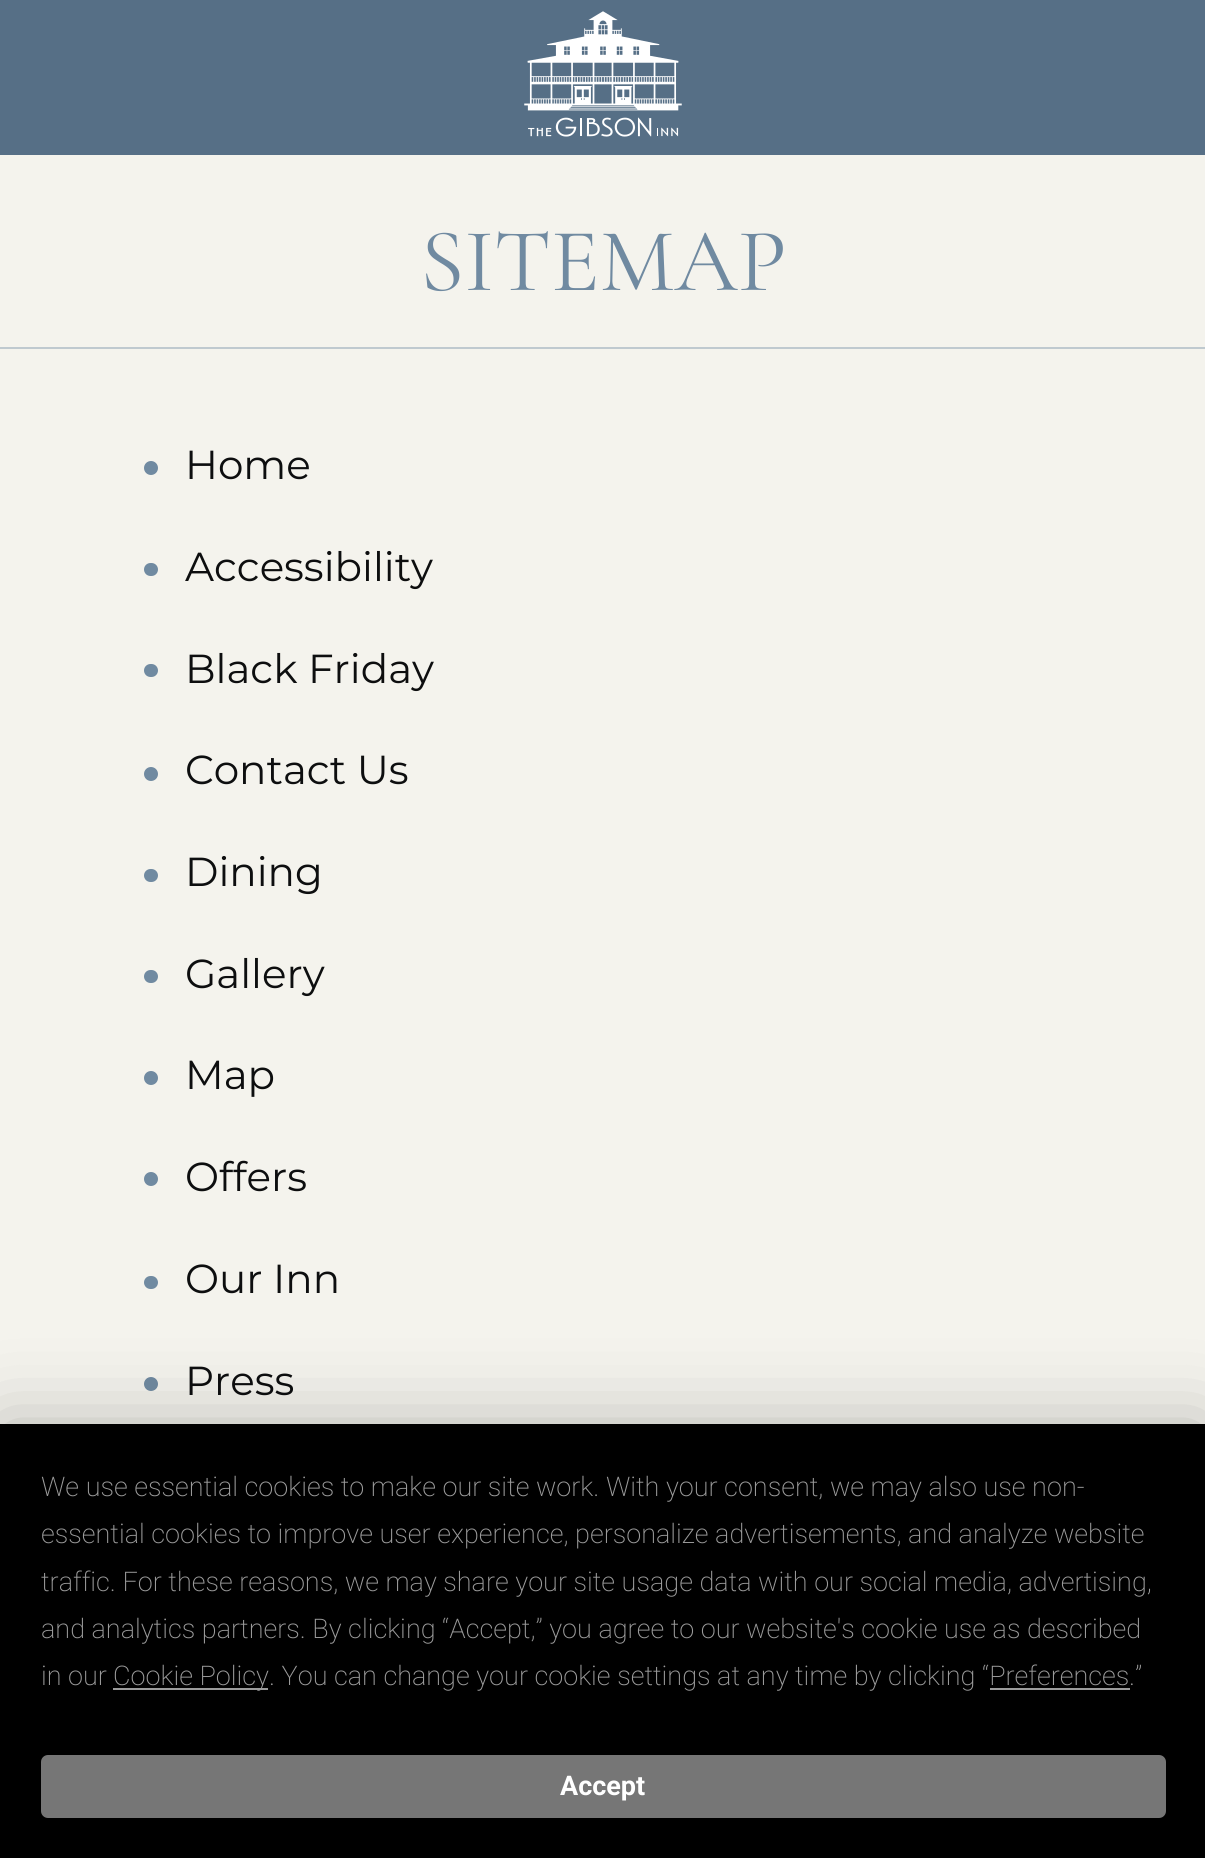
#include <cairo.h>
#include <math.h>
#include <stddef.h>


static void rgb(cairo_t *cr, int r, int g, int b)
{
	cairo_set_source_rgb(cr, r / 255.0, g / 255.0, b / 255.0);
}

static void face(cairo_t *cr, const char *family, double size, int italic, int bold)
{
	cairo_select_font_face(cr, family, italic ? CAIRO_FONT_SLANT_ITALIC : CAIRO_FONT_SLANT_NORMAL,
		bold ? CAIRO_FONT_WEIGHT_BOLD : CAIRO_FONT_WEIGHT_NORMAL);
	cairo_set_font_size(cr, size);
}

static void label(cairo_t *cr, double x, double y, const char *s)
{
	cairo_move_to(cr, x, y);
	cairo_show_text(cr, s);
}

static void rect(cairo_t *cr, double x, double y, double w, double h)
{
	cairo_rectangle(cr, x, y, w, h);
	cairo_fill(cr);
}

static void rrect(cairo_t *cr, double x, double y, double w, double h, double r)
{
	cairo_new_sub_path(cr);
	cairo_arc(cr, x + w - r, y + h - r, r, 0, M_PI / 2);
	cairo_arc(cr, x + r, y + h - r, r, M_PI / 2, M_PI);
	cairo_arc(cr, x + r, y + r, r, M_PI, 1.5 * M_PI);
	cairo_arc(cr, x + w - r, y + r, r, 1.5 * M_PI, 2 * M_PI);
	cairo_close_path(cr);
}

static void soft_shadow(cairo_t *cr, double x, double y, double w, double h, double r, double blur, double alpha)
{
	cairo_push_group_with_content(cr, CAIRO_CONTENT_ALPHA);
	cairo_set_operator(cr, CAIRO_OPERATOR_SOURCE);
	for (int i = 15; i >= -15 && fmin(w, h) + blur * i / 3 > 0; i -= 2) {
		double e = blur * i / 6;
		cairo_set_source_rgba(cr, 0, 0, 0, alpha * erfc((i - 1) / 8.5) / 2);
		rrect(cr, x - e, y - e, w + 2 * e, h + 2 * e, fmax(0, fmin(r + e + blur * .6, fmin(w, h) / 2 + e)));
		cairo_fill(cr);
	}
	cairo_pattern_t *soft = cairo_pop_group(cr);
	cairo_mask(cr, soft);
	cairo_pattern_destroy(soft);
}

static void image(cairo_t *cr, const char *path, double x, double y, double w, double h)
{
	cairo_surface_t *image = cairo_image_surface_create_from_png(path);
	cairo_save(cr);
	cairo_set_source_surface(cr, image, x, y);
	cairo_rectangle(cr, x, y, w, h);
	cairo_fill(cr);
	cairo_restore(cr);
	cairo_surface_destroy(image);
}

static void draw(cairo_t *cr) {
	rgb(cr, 244, 243, 237);
	cairo_paint(cr);
	rgb(cr, 86, 111, 134);
	rect(cr, 0, 0, 1205, 155);
	image(cr, "image0.png", 524, 11, 158, 126);
	rgb(cr, 191, 201, 207);
	rect(cr, 0, 347, 1205, 2);
	face(cr, "Cormorant Garamond", 90, 0, 0);
	rgb(cr, 112, 138, 161);
	label(cr, 420, 290, "SITEMAP");
	cairo_new_path(cr);
	cairo_arc(cr, 151, 468, 7, 0, 2 * M_PI);
	cairo_fill(cr);
	face(cr, "Montserrat", 40.5, 0, 0);
	rgb(cr, 13, 14, 15);
	label(cr, 185, 479, "Home");
	rgb(cr, 112, 138, 161);
	rrect(cr, 144, 563, 14, 13, 6.5);
	cairo_fill(cr);
	rgb(cr, 13, 14, 15);
	label(cr, 185, 581, "Accessibility");
	rgb(cr, 112, 138, 161);
	rrect(cr, 144, 664, 14, 13, 6.5);
	cairo_fill(cr);
	rgb(cr, 13, 14, 15);
	label(cr, 185, 683, "Black Friday");
	rgb(cr, 112, 138, 161);
	cairo_new_path(cr);
	cairo_arc(cr, 151, 774, 7, 0, 2 * M_PI);
	cairo_fill(cr);
	rgb(cr, 13, 14, 15);
	label(cr, 185, 784, "Contact Us");
	rgb(cr, 112, 138, 161);
	rrect(cr, 144, 869, 14, 13, 6.5);
	cairo_fill(cr);
	rgb(cr, 13, 14, 15);
	label(cr, 185, 886, "Dining");
	rgb(cr, 112, 138, 161);
	rrect(cr, 144, 970, 14, 13, 6.5);
	cairo_fill(cr);
	rgb(cr, 13, 14, 15);
	label(cr, 185, 988, "Gallery");
	rgb(cr, 112, 138, 161);
	cairo_new_path(cr);
	cairo_arc(cr, 151, 1078, 7, 0, 2 * M_PI);
	cairo_fill(cr);
	rgb(cr, 13, 14, 15);
	label(cr, 185, 1089, "Map");
	rgb(cr, 112, 138, 161);
	cairo_new_path(cr);
	cairo_arc(cr, 151, 1179, 7, 0, 2 * M_PI);
	cairo_fill(cr);
	rgb(cr, 13, 14, 15);
	label(cr, 185, 1191, "Offers");
	rgb(cr, 112, 138, 161);
	rrect(cr, 144, 1276, 14, 13, 6.5);
	cairo_fill(cr);
	rgb(cr, 13, 14, 15);
	label(cr, 185, 1293, "Our Inn");
	rgb(cr, 112, 138, 161);
	cairo_new_path(cr);
	cairo_arc(cr, 151, 1384, 7, 0, 2 * M_PI);
	cairo_fill(cr);
	rgb(cr, 13, 14, 15);
	label(cr, 185, 1395, "Press");
	rgb(cr, 0, 0, 0);
	soft_shadow(cr, 0, 1424, 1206, 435, 0, 39.5, 0.25);
	rgb(cr, 0, 0, 0);
	rect(cr, 0, 1424, 1205, 434);
	face(cr, "Roboto ExtraLight", 27, 0, 0);
	rgb(cr, 155, 155, 155);
	label(cr, 41, 1496, "We use essential cookies to make our site work. With your consent, we may also use non-");
	label(cr, 41, 1543, "essential cookies to improve user experience, personalize advertisements, and analyze website");
	label(cr, 41, 1591, "traffic. For these reasons, we may share your site usage data with our social media, advertising,");
	label(cr, 41, 1638, "and analytics partners. By clicking “Accept,” you agree to our website's cookie use as described");
	label(cr, 41, 1685, "in our");
	rect(cr, 113, 1688, 155, 2);
	label(cr, 113, 1685, "Cookie Policy");
	label(cr, 269, 1685, ". You can change your cookie settings at any time by clicking “Preferences");
	label(cr, 1129, 1685, ".”");
	rect(cr, 990, 1688, 140, 2);
	rgb(cr, 118, 118, 118);
	rrect(cr, 42, 1756, 1123, 61, 6);
	cairo_fill_preserve(cr);
	cairo_stroke(cr);
	face(cr, "Roboto", 27, 0, 1);
	rgb(cr, 255, 255, 255);
	label(cr, 560, 1795, "Accept");
}

int main(void) {
	cairo_surface_t *surface = cairo_image_surface_create(CAIRO_FORMAT_RGB24, 1205, 1858);
	cairo_t *cr = cairo_create(surface);
	cairo_font_options_t *options = cairo_font_options_create();
	cairo_font_options_set_hint_metrics(options, CAIRO_HINT_METRICS_OFF);
	cairo_font_options_set_hint_style(options, CAIRO_HINT_STYLE_NONE);
	cairo_set_font_options(cr, options);
	cairo_set_miter_limit(cr, 4);
	draw(cr);
	cairo_surface_write_to_png(surface, "render.png");
	cairo_font_options_destroy(options);
	cairo_destroy(cr);
	cairo_surface_destroy(surface);
	return 0;
}
